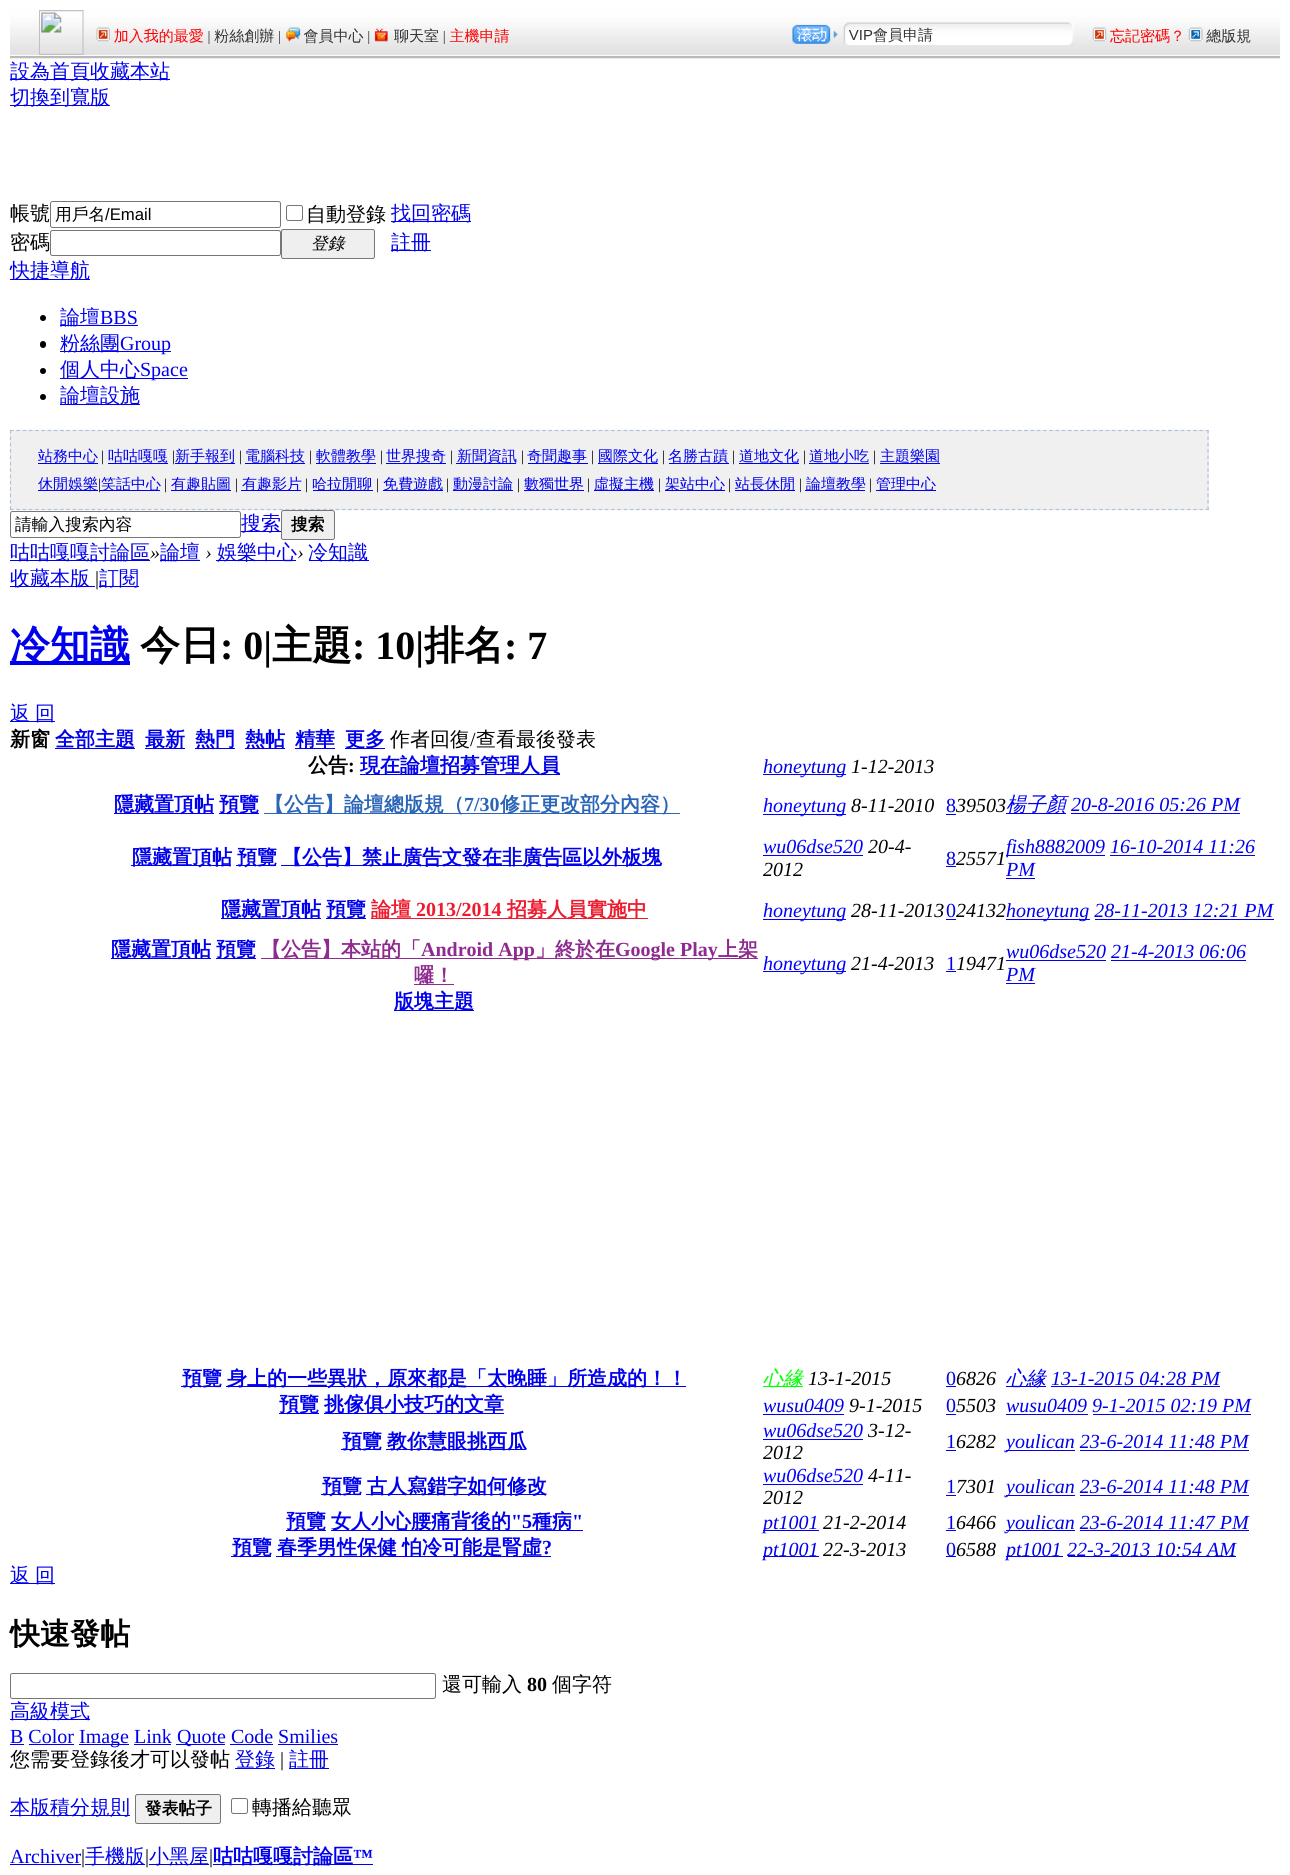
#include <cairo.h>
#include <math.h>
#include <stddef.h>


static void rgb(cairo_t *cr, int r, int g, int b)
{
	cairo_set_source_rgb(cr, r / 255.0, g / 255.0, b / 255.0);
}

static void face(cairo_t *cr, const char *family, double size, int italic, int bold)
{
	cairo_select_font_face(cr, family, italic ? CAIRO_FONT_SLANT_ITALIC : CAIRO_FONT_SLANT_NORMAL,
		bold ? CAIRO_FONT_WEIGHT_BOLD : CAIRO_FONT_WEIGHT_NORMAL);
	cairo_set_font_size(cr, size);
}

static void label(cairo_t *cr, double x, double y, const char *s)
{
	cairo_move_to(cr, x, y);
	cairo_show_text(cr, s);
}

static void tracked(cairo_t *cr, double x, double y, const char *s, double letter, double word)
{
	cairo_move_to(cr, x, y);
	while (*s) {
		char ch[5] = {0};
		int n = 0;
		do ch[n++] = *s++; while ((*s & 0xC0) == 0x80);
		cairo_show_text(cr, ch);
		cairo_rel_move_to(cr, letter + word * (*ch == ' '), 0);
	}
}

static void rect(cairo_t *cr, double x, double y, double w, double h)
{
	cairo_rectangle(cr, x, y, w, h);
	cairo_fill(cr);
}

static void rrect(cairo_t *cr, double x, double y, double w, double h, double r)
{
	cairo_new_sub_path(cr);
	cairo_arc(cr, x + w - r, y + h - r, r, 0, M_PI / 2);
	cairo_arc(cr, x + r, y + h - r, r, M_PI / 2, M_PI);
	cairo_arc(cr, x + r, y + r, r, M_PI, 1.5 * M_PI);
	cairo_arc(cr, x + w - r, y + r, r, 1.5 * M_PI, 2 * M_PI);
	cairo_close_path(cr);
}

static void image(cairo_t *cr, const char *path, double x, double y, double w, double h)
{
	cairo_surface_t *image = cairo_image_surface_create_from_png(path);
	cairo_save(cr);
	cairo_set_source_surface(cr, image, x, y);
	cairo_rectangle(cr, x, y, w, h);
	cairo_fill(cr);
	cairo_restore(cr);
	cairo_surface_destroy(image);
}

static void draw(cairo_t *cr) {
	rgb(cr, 255, 255, 255);
	cairo_paint(cr);
	image(cr, "image0.png", 10, 10, 1270, 49);
	rgb(cr, 0, 0, 238);
	rect(cr, 10, 79, 160, 1);
	face(cr, "WenQuanYi Zen Hei Medium", 20, 0, 0);
	label(cr, 10, 78, "設為首頁收藏本站");
	rect(cr, 10, 105, 100, 1);
	label(cr, 10, 104, "切換到寬版");
	rgb(cr, 0, 0, 0);
	label(cr, 10, 220, "帳號");
	rrect(cr, 50.5, 201.5, 230, 26, 2);
	rgb(cr, 118, 118, 118);
	cairo_set_line_width(cr, 1);
	cairo_stroke(cr);
	face(cr, "WenQuanYi Zen Hei Medium", 16.75, 0, 0);
	rgb(cr, 0, 0, 0);
	label(cr, 55, 220, "用戶名");
	face(cr, "Liberation Sans", 16.75, 0, 0);
	label(cr, 105, 220, "/Email");
	rrect(cr, 286.5, 205.5, 16, 15, 2);
	rgb(cr, 118, 118, 118);
	cairo_stroke(cr);
	face(cr, "WenQuanYi Zen Hei Medium", 20, 0, 0);
	rgb(cr, 0, 0, 0);
	label(cr, 306, 221, "自動登錄");
	rgb(cr, 0, 0, 238);
	rect(cr, 391, 221, 80, 1);
	label(cr, 391, 220, "找回密碼");
	rgb(cr, 0, 0, 0);
	label(cr, 10, 249, "密碼");
	rrect(cr, 50.5, 230.5, 230, 25, 2);
	rgb(cr, 118, 118, 118);
	cairo_stroke(cr);
	rgb(cr, 239, 239, 239);
	rrect(cr, 281.5, 229.5, 93, 29, 2);
	cairo_fill_preserve(cr);
	rgb(cr, 118, 118, 118);
	cairo_stroke(cr);
	face(cr, "WenQuanYi Zen Hei Medium", 16.75, 1, 0);
	rgb(cr, 0, 0, 0);
	label(cr, 311, 249, "登錄");
	rgb(cr, 0, 0, 238);
	rect(cr, 391, 250, 40, 1);
	face(cr, "WenQuanYi Zen Hei Medium", 20, 0, 0);
	label(cr, 391, 249, "註冊");
	rect(cr, 10, 279, 80, 1);
	label(cr, 10, 277, "快捷導航");
	rgb(cr, 0, 0, 0);
	cairo_new_path(cr);
	cairo_arc(cr, 43, 318, 3, 0, 2 * M_PI);
	cairo_fill(cr);
	rgb(cr, 0, 0, 238);
	rect(cr, 60, 325, 78, 1);
	label(cr, 60, 324, "論壇");
	face(cr, "Liberation Serif", 20, 0, 0);
	label(cr, 100, 324, "BBS");
	rgb(cr, 0, 0, 0);
	rrect(cr, 40, 341, 6, 7, 3);
	cairo_fill(cr);
	rgb(cr, 0, 0, 238);
	rect(cr, 60, 351, 111, 1);
	face(cr, "WenQuanYi Zen Hei Medium", 20, 0, 0);
	label(cr, 60, 350, "粉絲團");
	face(cr, "Liberation Serif", 20, 0, 0);
	label(cr, 120, 350, "Group");
	rgb(cr, 0, 0, 0);
	cairo_new_path(cr);
	cairo_arc(cr, 43, 371, 3, 0, 2 * M_PI);
	cairo_fill(cr);
	rgb(cr, 0, 0, 238);
	rect(cr, 60, 378, 128, 1);
	face(cr, "WenQuanYi Zen Hei Medium", 20, 0, 0);
	label(cr, 60, 376, "個人中心");
	face(cr, "Liberation Serif", 20, 0, 0);
	label(cr, 140, 376, "Space");
	rgb(cr, 0, 0, 0);
	cairo_new_path(cr);
	cairo_arc(cr, 43, 397, 3, 0, 2 * M_PI);
	cairo_fill(cr);
	rgb(cr, 0, 0, 238);
	rect(cr, 60, 404, 80, 1);
	face(cr, "WenQuanYi Zen Hei Medium", 20, 0, 0);
	label(cr, 60, 402, "論壇設施");
	rgb(cr, 240, 240, 240);
	rect(cr, 10, 430, 1199, 80);
	cairo_new_path(cr);
	cairo_move_to(cr, 10, 430.5);
	cairo_line_to(cr, 1209, 430.5);
	rgb(cr, 177, 195, 217);
	cairo_set_line_width(cr, 1.2);
	cairo_set_dash(cr, (double[]){3.75, 2.51}, 2, 0);
	cairo_stroke(cr);
	cairo_new_path(cr);
	cairo_move_to(cr, 1208, 430);
	cairo_line_to(cr, 1208, 510);
	cairo_set_dash(cr, (double[]){3.75, 2.6}, 2, 0);
	cairo_stroke(cr);
	cairo_new_path(cr);
	cairo_move_to(cr, 10, 509.5);
	cairo_line_to(cr, 1209, 509.5);
	cairo_set_dash(cr, (double[]){3.75, 2.51}, 2, 0);
	cairo_stroke(cr);
	cairo_new_path(cr);
	cairo_move_to(cr, 10.5, 430);
	cairo_line_to(cr, 10.5, 510);
	cairo_set_dash(cr, (double[]){3.75, 2.6}, 2, 0);
	cairo_stroke(cr);
	face(cr, "WenQuanYi Zen Hei Medium", 15, 0, 0);
	rgb(cr, 0, 0, 238);
	label(cr, 38, 461, "站務中心");
	rect(cr, 38, 463, 60, 1);
	face(cr, "Liberation Serif", 15, 0, 0);
	rgb(cr, 0, 0, 0);
	label(cr, 101, 461, "|");
	rgb(cr, 0, 0, 238);
	rect(cr, 108, 463, 60, 1);
	face(cr, "WenQuanYi Zen Hei Medium", 15, 0, 0);
	label(cr, 108, 461, "咕咕嘎嘎");
	face(cr, "Liberation Serif", 15, 0, 0);
	rgb(cr, 0, 0, 0);
	label(cr, 172, 461, "|");
	rgb(cr, 0, 0, 238);
	rect(cr, 175, 463, 60, 1);
	face(cr, "WenQuanYi Zen Hei Medium", 15, 0, 0);
	label(cr, 175, 461, "新手報到");
	face(cr, "Liberation Serif", 15, 0, 0);
	rgb(cr, 0, 0, 0);
	label(cr, 239, 461, "|");
	rgb(cr, 0, 0, 238);
	rect(cr, 245, 463, 60, 1);
	face(cr, "WenQuanYi Zen Hei Medium", 15, 0, 0);
	label(cr, 245, 461, "電腦科技");
	face(cr, "Liberation Serif", 15, 0, 0);
	rgb(cr, 0, 0, 0);
	label(cr, 309, 461, "|");
	rgb(cr, 0, 0, 238);
	rect(cr, 316, 463, 60, 1);
	face(cr, "WenQuanYi Zen Hei Medium", 15, 0, 0);
	label(cr, 316, 461, "軟體教學");
	face(cr, "Liberation Serif", 15, 0, 0);
	rgb(cr, 0, 0, 0);
	label(cr, 380, 461, "|");
	rgb(cr, 0, 0, 238);
	rect(cr, 386, 463, 60, 1);
	face(cr, "WenQuanYi Zen Hei Medium", 15, 0, 0);
	label(cr, 386, 461, "世界搜奇");
	face(cr, "Liberation Serif", 15, 0, 0);
	rgb(cr, 0, 0, 0);
	label(cr, 450, 461, "|");
	rgb(cr, 0, 0, 238);
	rect(cr, 456, 463, 60, 1);
	face(cr, "WenQuanYi Zen Hei Medium", 15, 0, 0);
	label(cr, 457, 461, "新聞資訊");
	face(cr, "Liberation Serif", 15, 0, 0);
	rgb(cr, 0, 0, 0);
	label(cr, 521, 461, "|");
	rgb(cr, 0, 0, 238);
	rect(cr, 528, 463, 60, 1);
	face(cr, "WenQuanYi Zen Hei Medium", 15, 0, 0);
	label(cr, 527, 461, "奇聞趣事");
	face(cr, "Liberation Serif", 15, 0, 0);
	rgb(cr, 0, 0, 0);
	label(cr, 591, 461, "|");
	face(cr, "WenQuanYi Zen Hei Medium", 15, 0, 0);
	rgb(cr, 0, 0, 238);
	label(cr, 598, 461, "國際文化");
	rect(cr, 598, 463, 60, 1);
	face(cr, "Liberation Serif", 15, 0, 0);
	rgb(cr, 0, 0, 0);
	label(cr, 662, 461, "|");
	rgb(cr, 0, 0, 238);
	rect(cr, 669, 463, 60, 1);
	face(cr, "WenQuanYi Zen Hei Medium", 15, 0, 0);
	label(cr, 668, 461, "名勝古蹟");
	face(cr, "Liberation Serif", 15, 0, 0);
	rgb(cr, 0, 0, 0);
	label(cr, 732, 461, "|");
	face(cr, "WenQuanYi Zen Hei Medium", 15, 0, 0);
	rgb(cr, 0, 0, 238);
	label(cr, 739, 461, "道地文化");
	rect(cr, 739, 463, 60, 1);
	face(cr, "Liberation Serif", 15, 0, 0);
	rgb(cr, 0, 0, 0);
	label(cr, 803, 461, "|");
	rgb(cr, 0, 0, 238);
	rect(cr, 809, 463, 60, 1);
	face(cr, "WenQuanYi Zen Hei Medium", 15, 0, 0);
	label(cr, 809, 461, "道地小吃");
	face(cr, "Liberation Serif", 15, 0, 0);
	rgb(cr, 0, 0, 0);
	label(cr, 873, 461, "|");
	rgb(cr, 0, 0, 238);
	rect(cr, 880, 463, 60, 1);
	face(cr, "WenQuanYi Zen Hei Medium", 15, 0, 0);
	label(cr, 880, 461, "主題樂園");
	rect(cr, 38, 490, 60, 1);
	label(cr, 38, 489, "休閒娛樂");
	face(cr, "Liberation Serif", 15, 0, 0);
	rgb(cr, 0, 0, 0);
	label(cr, 98, 489, "|");
	rgb(cr, 0, 0, 238);
	rect(cr, 100, 490, 60, 1);
	face(cr, "WenQuanYi Zen Hei Medium", 15, 0, 0);
	label(cr, 101, 489, "笑話中心");
	face(cr, "Liberation Serif", 15, 0, 0);
	rgb(cr, 0, 0, 0);
	label(cr, 164, 489, "|");
	rgb(cr, 0, 0, 238);
	rect(cr, 171, 490, 60, 1);
	face(cr, "WenQuanYi Zen Hei Medium", 15, 0, 0);
	label(cr, 171, 489, "有趣貼圖");
	face(cr, "Liberation Serif", 15, 0, 0);
	rgb(cr, 0, 0, 0);
	label(cr, 235, 489, "|");
	rgb(cr, 0, 0, 238);
	rect(cr, 241, 490, 60, 1);
	face(cr, "WenQuanYi Zen Hei Medium", 15, 0, 0);
	label(cr, 242, 489, "有趣影片");
	face(cr, "Liberation Serif", 15, 0, 0);
	rgb(cr, 0, 0, 0);
	label(cr, 305, 489, "|");
	rgb(cr, 0, 0, 238);
	rect(cr, 313, 490, 60, 1);
	face(cr, "WenQuanYi Zen Hei Medium", 15, 0, 0);
	label(cr, 312, 489, "哈拉閒聊");
	face(cr, "Liberation Serif", 15, 0, 0);
	rgb(cr, 0, 0, 0);
	label(cr, 376, 489, "|");
	rgb(cr, 0, 0, 238);
	rect(cr, 383, 490, 60, 1);
	face(cr, "WenQuanYi Zen Hei Medium", 15, 0, 0);
	label(cr, 383, 489, "免費遊戲");
	face(cr, "Liberation Serif", 15, 0, 0);
	rgb(cr, 0, 0, 0);
	label(cr, 446, 489, "|");
	rgb(cr, 0, 0, 238);
	rect(cr, 453, 490, 60, 1);
	face(cr, "WenQuanYi Zen Hei Medium", 15, 0, 0);
	label(cr, 453, 489, "動漫討論");
	face(cr, "Liberation Serif", 15, 0, 0);
	rgb(cr, 0, 0, 0);
	label(cr, 517, 489, "|");
	rgb(cr, 0, 0, 238);
	rect(cr, 524, 490, 60, 1);
	face(cr, "WenQuanYi Zen Hei Medium", 15, 0, 0);
	label(cr, 524, 489, "數獨世界");
	face(cr, "Liberation Serif", 15, 0, 0);
	rgb(cr, 0, 0, 0);
	label(cr, 587, 489, "|");
	rgb(cr, 0, 0, 238);
	rect(cr, 594, 490, 60, 1);
	face(cr, "WenQuanYi Zen Hei Medium", 15, 0, 0);
	label(cr, 594, 489, "虛擬主機");
	face(cr, "Liberation Serif", 15, 0, 0);
	rgb(cr, 0, 0, 0);
	label(cr, 658, 489, "|");
	rgb(cr, 0, 0, 238);
	rect(cr, 665, 490, 60, 1);
	face(cr, "WenQuanYi Zen Hei Medium", 15, 0, 0);
	label(cr, 665, 489, "架站中心");
	face(cr, "Liberation Serif", 15, 0, 0);
	rgb(cr, 0, 0, 0);
	label(cr, 728, 489, "|");
	rgb(cr, 0, 0, 238);
	rect(cr, 735, 490, 60, 1);
	face(cr, "WenQuanYi Zen Hei Medium", 15, 0, 0);
	label(cr, 735, 489, "站長休閒");
	face(cr, "Liberation Serif", 15, 0, 0);
	rgb(cr, 0, 0, 0);
	label(cr, 799, 489, "|");
	rgb(cr, 0, 0, 238);
	rect(cr, 805, 490, 60, 1);
	face(cr, "WenQuanYi Zen Hei Medium", 15, 0, 0);
	label(cr, 806, 489, "論壇教學");
	face(cr, "Liberation Serif", 15, 0, 0);
	rgb(cr, 0, 0, 0);
	label(cr, 869, 489, "|");
	rgb(cr, 0, 0, 238);
	rect(cr, 876, 490, 60, 1);
	face(cr, "WenQuanYi Zen Hei Medium", 15, 0, 0);
	label(cr, 876, 489, "管理中心");
	rrect(cr, 10.5, 511.5, 230, 26, 2);
	rgb(cr, 118, 118, 118);
	cairo_set_line_width(cr, 1);
	cairo_set_dash(cr, NULL, 0, 0);
	cairo_stroke(cr);
	face(cr, "WenQuanYi Zen Hei Medium", 16.75, 0, 0);
	rgb(cr, 0, 0, 0);
	label(cr, 15, 530, "請輸入搜索內容");
	rgb(cr, 0, 0, 238);
	rect(cr, 241, 531, 40, 1);
	face(cr, "WenQuanYi Zen Hei Medium", 20, 0, 0);
	label(cr, 241, 530, "搜索");
	rgb(cr, 239, 239, 239);
	rrect(cr, 281.5, 510.5, 53, 29, 2);
	cairo_fill_preserve(cr);
	rgb(cr, 118, 118, 118);
	cairo_stroke(cr);
	face(cr, "WenQuanYi Zen Hei", 16.75, 0, 1);
	rgb(cr, 0, 0, 0);
	label(cr, 291, 530, "搜索");
	rgb(cr, 0, 0, 238);
	rect(cr, 10, 560, 140, 1);
	face(cr, "WenQuanYi Zen Hei Medium", 20, 0, 0);
	label(cr, 10, 559, "咕咕嘎嘎討論區");
	face(cr, "Liberation Serif", 20, 1, 0);
	rgb(cr, 0, 0, 0);
	label(cr, 150, 559, "»");
	rgb(cr, 0, 0, 238);
	rect(cr, 160, 560, 40, 1);
	face(cr, "WenQuanYi Zen Hei Medium", 20, 0, 0);
	label(cr, 160, 559, "論壇");
	face(cr, "Liberation Serif", 20, 1, 0);
	rgb(cr, 0, 0, 0);
	label(cr, 205, 559, "›");
	rgb(cr, 0, 0, 238);
	rect(cr, 216, 560, 80, 1);
	face(cr, "WenQuanYi Zen Hei Medium", 20, 0, 0);
	label(cr, 217, 559, "娛樂中心");
	face(cr, "Liberation Serif", 20, 1, 0);
	rgb(cr, 0, 0, 0);
	label(cr, 297, 559, "›");
	rgb(cr, 0, 0, 238);
	rect(cr, 309, 560, 60, 1);
	face(cr, "WenQuanYi Zen Hei Medium", 20, 0, 0);
	label(cr, 308, 559, "冷知識");
	rect(cr, 10, 586, 85, 1);
	label(cr, 10, 585, "收藏本版");
	face(cr, "Liberation Serif", 20, 0, 0);
	rgb(cr, 0, 0, 0);
	label(cr, 95, 585, "|");
	rgb(cr, 0, 0, 238);
	rect(cr, 99, 586, 40, 1);
	face(cr, "WenQuanYi Zen Hei Medium", 20, 0, 0);
	label(cr, 99, 585, "訂閱");
	rect(cr, 10, 661, 120, 4);
	face(cr, "WenQuanYi Zen Hei", 40, 0, 1);
	label(cr, 10, 659, "冷知識");
	rgb(cr, 0, 0, 0);
	label(cr, 140, 659, "今日");
	face(cr, "Liberation Serif", 40, 0, 1);
	label(cr, 220, 659, ": 0|");
	face(cr, "WenQuanYi Zen Hei", 40, 0, 1);
	label(cr, 272, 659, "主題");
	face(cr, "Liberation Serif", 40, 0, 1);
	label(cr, 352, 659, ": 10|");
	face(cr, "WenQuanYi Zen Hei", 40, 0, 1);
	label(cr, 424, 659, "排名");
	face(cr, "Liberation Serif", 40, 0, 1);
	label(cr, 504, 659, ": 7");
	rgb(cr, 0, 0, 238);
	rect(cr, 10, 721, 45, 1);
	face(cr, "WenQuanYi Zen Hei Medium", 20, 0, 0);
	label(cr, 10, 720, "返");
	label(cr, 35, 720, "回");
	face(cr, "WenQuanYi Zen Hei", 20, 0, 1);
	rgb(cr, 0, 0, 0);
	label(cr, 10, 746, "新窗");
	rgb(cr, 0, 0, 238);
	rect(cr, 55, 748, 80, 1);
	label(cr, 55, 746, "全部主題");
	rect(cr, 145, 748, 40, 1);
	label(cr, 145, 746, "最新");
	rect(cr, 195, 748, 40, 1);
	label(cr, 195, 746, "熱門");
	rect(cr, 245, 748, 40, 1);
	label(cr, 245, 746, "熱帖");
	rect(cr, 295, 748, 40, 1);
	label(cr, 295, 746, "精華");
	rect(cr, 345, 748, 40, 1);
	label(cr, 345, 746, "更多");
	face(cr, "WenQuanYi Zen Hei Medium", 20, 0, 0);
	rgb(cr, 0, 0, 0);
	label(cr, 390, 746, "作者回復");
	face(cr, "Liberation Serif", 20, 0, 0);
	label(cr, 470, 746, "/");
	face(cr, "WenQuanYi Zen Hei Medium", 20, 0, 0);
	label(cr, 476, 746, "查看最後發表");
	face(cr, "WenQuanYi Zen Hei", 20, 0, 1);
	label(cr, 308, 772, "公告");
	face(cr, "Liberation Serif", 20, 0, 1);
	label(cr, 348, 772, ":");
	rgb(cr, 0, 0, 238);
	rect(cr, 360, 774, 200, 1);
	face(cr, "WenQuanYi Zen Hei", 20, 0, 1);
	label(cr, 360, 772, "現在論壇招募管理人員");
	rect(cr, 763, 774, 83, 1);
	face(cr, "Liberation Serif", 20, 1, 0);
	label(cr, 763, 773, "honeytung");
	rgb(cr, 0, 0, 0);
	label(cr, 851, 773, "1-12-2013");
	rgb(cr, 0, 0, 238);
	rect(cr, 114, 813, 100, 1);
	face(cr, "WenQuanYi Zen Hei", 20, 0, 1);
	label(cr, 114, 811, "隱藏置頂帖");
	rect(cr, 219, 813, 40, 1);
	label(cr, 219, 811, "預覽");
	rgb(cr, 43, 101, 183);
	rect(cr, 264, 813, 416, 1);
	label(cr, 264, 811, "【公告】論壇總版規（");
	face(cr, "Liberation Serif", 20, 0, 1);
	label(cr, 464, 811, "7/30");
	face(cr, "WenQuanYi Zen Hei", 20, 0, 1);
	label(cr, 500, 811, "修正更改部分內容）");
	rgb(cr, 0, 0, 255);
	rect(cr, 763, 814, 83, 1);
	face(cr, "Liberation Serif", 20, 1, 0);
	label(cr, 763, 812, "honeytung");
	rgb(cr, 0, 0, 0);
	label(cr, 851, 812, "8-11-2010");
	face(cr, "Liberation Serif", 20, 0, 0);
	rgb(cr, 0, 0, 238);
	label(cr, 946, 812, "8");
	rect(cr, 946, 814, 10, 1);
	face(cr, "Liberation Serif", 20, 1, 0);
	rgb(cr, 0, 0, 0);
	label(cr, 956, 812, "39503");
	rgb(cr, 0, 0, 238);
	rect(cr, 1006, 813, 60, 1);
	face(cr, "WenQuanYi Zen Hei Medium", 20, 1, 0);
	label(cr, 1006, 811, "楊子顏");
	face(cr, "Liberation Serif", 20, 1, 0);
	label(cr, 1071, 811, "20-8-2016 05:26 PM");
	rect(cr, 1071, 813, 169, 1);
	rect(cr, 131, 865, 100, 1);
	face(cr, "WenQuanYi Zen Hei", 20, 0, 1);
	label(cr, 132, 864, "隱藏置頂帖");
	rect(cr, 236, 865, 40, 1);
	label(cr, 237, 864, "預覽");
	rect(cr, 281, 865, 380, 1);
	label(cr, 282, 864, "【公告】禁止廣告文發在非廣告區以外板塊");
	face(cr, "Liberation Serif", 20, 1, 0);
	rgb(cr, 0, 0, 255);
	label(cr, 763, 853, "wu06dse520");
	rect(cr, 763, 855, 100, 1);
	rgb(cr, 0, 0, 0);
	label(cr, 868, 853, "20-4-");
	label(cr, 763, 876, "2012");
	face(cr, "Liberation Serif", 20, 0, 0);
	rgb(cr, 0, 0, 238);
	label(cr, 946, 865, "8");
	rect(cr, 946, 866, 10, 1);
	face(cr, "Liberation Serif", 20, 1, 0);
	rgb(cr, 0, 0, 0);
	label(cr, 956, 865, "25571");
	rgb(cr, 0, 0, 238);
	rect(cr, 1006, 855, 99, 1);
	label(cr, 1006, 853, "fish8882009 16-10-2014 11:26");
	label(cr, 1006, 876, "PM");
	rect(cr, 1110, 855, 145, 1);
	rect(cr, 1006, 878, 29, 1);
	rect(cr, 221, 918, 100, 1);
	face(cr, "WenQuanYi Zen Hei", 20, 0, 1);
	label(cr, 221, 916, "隱藏置頂帖");
	rect(cr, 326, 918, 40, 1);
	label(cr, 326, 916, "預覽");
	rgb(cr, 238, 27, 46);
	rect(cr, 371, 918, 277, 1);
	label(cr, 371, 916, "論壇");
	face(cr, "Liberation Serif", 20, 0, 1);
	label(cr, 416, 916, "2013/2014");
	face(cr, "WenQuanYi Zen Hei", 20, 0, 1);
	label(cr, 507, 916, "招募人員實施中");
	rgb(cr, 0, 0, 255);
	rect(cr, 763, 919, 83, 1);
	face(cr, "Liberation Serif", 20, 1, 0);
	label(cr, 763, 917, "honeytung");
	rgb(cr, 0, 0, 0);
	label(cr, 851, 917, "28-11-2013");
	face(cr, "Liberation Serif", 20, 0, 0);
	rgb(cr, 0, 0, 238);
	label(cr, 946, 917, "0");
	rect(cr, 946, 919, 10, 1);
	face(cr, "Liberation Serif", 20, 1, 0);
	rgb(cr, 0, 0, 0);
	label(cr, 956, 917, "24132");
	rgb(cr, 0, 0, 238);
	rect(cr, 1006, 919, 84, 1);
	label(cr, 1006, 917, "honeytung 28-11-2013 12:21 PM");
	rect(cr, 1095, 919, 179, 1);
	rect(cr, 111, 958, 100, 1);
	face(cr, "WenQuanYi Zen Hei", 20, 0, 1);
	label(cr, 111, 956, "隱藏置頂帖");
	rect(cr, 216, 958, 40, 1);
	label(cr, 216, 956, "預覽");
	rgb(cr, 143, 42, 144);
	rect(cr, 261, 958, 497, 1);
	label(cr, 261, 956, "【公告】本站的「");
	face(cr, "Liberation Serif", 20, 0, 1);
	label(cr, 421, 956, "Android App");
	face(cr, "WenQuanYi Zen Hei", 20, 0, 1);
	label(cr, 535, 956, "」終於在");
	face(cr, "Liberation Serif", 20, 0, 1);
	label(cr, 615, 956, "Google Play");
	face(cr, "WenQuanYi Zen Hei", 20, 0, 1);
	label(cr, 718, 956, "上架");
	rect(cr, 414, 984, 40, 1);
	label(cr, 414, 982, "囉！");
	rgb(cr, 0, 0, 255);
	rect(cr, 763, 971, 83, 1);
	face(cr, "Liberation Serif", 20, 1, 0);
	label(cr, 763, 970, "honeytung");
	rgb(cr, 0, 0, 0);
	label(cr, 851, 970, "21-4-2013");
	face(cr, "Liberation Serif", 20, 0, 0);
	rgb(cr, 0, 0, 238);
	label(cr, 946, 970, "1");
	rect(cr, 946, 971, 10, 1);
	face(cr, "Liberation Serif", 20, 1, 0);
	rgb(cr, 0, 0, 0);
	label(cr, 956, 970, "19471");
	rgb(cr, 0, 0, 238);
	label(cr, 1006, 958, "wu06dse520 21-4-2013 06:06");
	rect(cr, 1006, 960, 100, 1);
	label(cr, 1006, 981, "PM");
	rect(cr, 1111, 960, 135, 1);
	rect(cr, 1006, 983, 29, 1);
	rect(cr, 394, 1010, 80, 1);
	face(cr, "WenQuanYi Zen Hei", 20, 0, 1);
	label(cr, 394, 1008, "版塊主題");
	rect(cr, 181, 1386, 40, 1);
	label(cr, 182, 1385, "預覽");
	rect(cr, 226, 1386, 460, 1);
	label(cr, 227, 1385, "身上的一些異狀，原來都是「太晚睡」所造成的！！");
	rgb(cr, 0, 255, 0);
	rect(cr, 763, 1386, 40, 1);
	face(cr, "WenQuanYi Zen Hei Medium", 20, 1, 0);
	label(cr, 763, 1385, "心緣");
	face(cr, "Liberation Serif", 20, 1, 0);
	rgb(cr, 0, 0, 0);
	label(cr, 808, 1385, "13-1-2015");
	face(cr, "Liberation Serif", 20, 0, 0);
	rgb(cr, 0, 0, 238);
	label(cr, 946, 1385, "0");
	rect(cr, 946, 1386, 10, 1);
	face(cr, "Liberation Serif", 20, 1, 0);
	rgb(cr, 0, 0, 0);
	label(cr, 956, 1385, "6826");
	rgb(cr, 0, 0, 238);
	rect(cr, 1006, 1386, 40, 1);
	face(cr, "WenQuanYi Zen Hei Medium", 20, 1, 0);
	label(cr, 1006, 1385, "心緣");
	face(cr, "Liberation Serif", 20, 1, 0);
	label(cr, 1051, 1385, "13-1-2015 04:28 PM");
	rect(cr, 1051, 1386, 169, 1);
	rect(cr, 279, 1413, 40, 1);
	face(cr, "WenQuanYi Zen Hei", 20, 0, 1);
	label(cr, 279, 1411, "預覽");
	rect(cr, 324, 1413, 180, 1);
	label(cr, 324, 1411, "挑傢俱小技巧的文章");
	face(cr, "Liberation Serif", 20, 1, 0);
	label(cr, 763, 1412, "wusu0409");
	rect(cr, 763, 1414, 81, 1);
	rgb(cr, 0, 0, 0);
	label(cr, 849, 1412, "9-1-2015");
	face(cr, "Liberation Serif", 20, 0, 0);
	rgb(cr, 0, 0, 238);
	label(cr, 946, 1412, "0");
	rect(cr, 946, 1414, 10, 1);
	face(cr, "Liberation Serif", 20, 1, 0);
	rgb(cr, 0, 0, 0);
	label(cr, 956, 1412, "5503");
	rgb(cr, 0, 0, 238);
	label(cr, 1006, 1412, "wusu0409 9-1-2015 02:19 PM");
	rect(cr, 1006, 1414, 82, 1);
	rect(cr, 1093, 1414, 158, 1);
	rect(cr, 341, 1449, 40, 1);
	face(cr, "WenQuanYi Zen Hei", 20, 0, 1);
	label(cr, 342, 1448, "預覽");
	rect(cr, 386, 1449, 140, 1);
	label(cr, 387, 1448, "教你慧眼挑西瓜");
	face(cr, "Liberation Serif", 20, 1, 0);
	rgb(cr, 0, 0, 255);
	label(cr, 763, 1437, "wu06dse520");
	rect(cr, 763, 1439, 100, 1);
	rgb(cr, 0, 0, 0);
	label(cr, 868, 1437, "3-12-");
	label(cr, 763, 1459, "2012");
	face(cr, "Liberation Serif", 20, 0, 0);
	rgb(cr, 0, 0, 238);
	label(cr, 946, 1448, "1");
	rect(cr, 946, 1450, 10, 1);
	face(cr, "Liberation Serif", 20, 1, 0);
	rgb(cr, 0, 0, 0);
	label(cr, 956, 1448, "6282");
	rgb(cr, 0, 0, 238);
	rect(cr, 1006, 1450, 69, 1);
	label(cr, 1006, 1448, "youlican 23-6-2014 11:48 PM");
	rect(cr, 1080, 1450, 169, 1);
	rect(cr, 321, 1494, 40, 1);
	face(cr, "WenQuanYi Zen Hei", 20, 0, 1);
	label(cr, 322, 1493, "預覽");
	rect(cr, 366, 1494, 180, 1);
	label(cr, 367, 1493, "古人寫錯字如何修改");
	face(cr, "Liberation Serif", 20, 1, 0);
	rgb(cr, 0, 0, 255);
	label(cr, 763, 1482, "wu06dse520");
	rect(cr, 763, 1484, 100, 1);
	rgb(cr, 0, 0, 0);
	label(cr, 868, 1482, "4-11-");
	label(cr, 763, 1504, "2012");
	face(cr, "Liberation Serif", 20, 0, 0);
	rgb(cr, 0, 0, 238);
	label(cr, 946, 1493, "1");
	rect(cr, 946, 1495, 10, 1);
	face(cr, "Liberation Serif", 20, 1, 0);
	rgb(cr, 0, 0, 0);
	label(cr, 956, 1493, "7301");
	rgb(cr, 0, 0, 238);
	rect(cr, 1006, 1495, 69, 1);
	label(cr, 1006, 1493, "youlican 23-6-2014 11:48 PM");
	rect(cr, 1080, 1495, 169, 1);
	rect(cr, 286, 1530, 40, 1);
	face(cr, "WenQuanYi Zen Hei", 20, 0, 1);
	label(cr, 286, 1528, "預覽");
	rect(cr, 331, 1530, 252, 1);
	label(cr, 331, 1528, "女人小心腰痛背後的");
	face(cr, "Liberation Serif", 20, 0, 1);
	label(cr, 511, 1528, "\"5");
	face(cr, "WenQuanYi Zen Hei", 20, 0, 1);
	label(cr, 532, 1528, "種病");
	face(cr, "Liberation Serif", 20, 0, 1);
	label(cr, 572, 1528, "\"");
	rect(cr, 763, 1530, 56, 1);
	face(cr, "Liberation Serif", 20, 1, 0);
	label(cr, 763, 1529, "pt1001");
	rgb(cr, 0, 0, 0);
	label(cr, 823, 1529, "21-2-2014");
	face(cr, "Liberation Serif", 20, 0, 0);
	rgb(cr, 0, 0, 238);
	label(cr, 946, 1529, "1");
	rect(cr, 946, 1530, 10, 1);
	face(cr, "Liberation Serif", 20, 1, 0);
	rgb(cr, 0, 0, 0);
	label(cr, 956, 1529, "6466");
	rgb(cr, 0, 0, 238);
	rect(cr, 1006, 1530, 69, 1);
	label(cr, 1006, 1529, "youlican 23-6-2014 11:47 PM");
	rect(cr, 1080, 1530, 169, 1);
	rect(cr, 231, 1556, 40, 1);
	face(cr, "WenQuanYi Zen Hei", 20, 0, 1);
	label(cr, 232, 1554, "預覽");
	rect(cr, 276, 1556, 275, 1);
	tracked(cr, 277, 1554, "春季男性保健 怕冷可能是腎虛", 0, -1);
	face(cr, "Liberation Serif", 20, 0, 1);
	label(cr, 542, 1554, "?");
	rect(cr, 763, 1556, 56, 1);
	face(cr, "Liberation Serif", 20, 1, 0);
	label(cr, 763, 1556, "pt1001");
	rgb(cr, 0, 0, 0);
	label(cr, 823, 1556, "22-3-2013");
	rgb(cr, 0, 0, 238);
	rect(cr, 946, 1556, 10, 1);
	face(cr, "Liberation Serif", 20, 0, 0);
	label(cr, 946, 1556, "0");
	face(cr, "Liberation Serif", 20, 1, 0);
	rgb(cr, 0, 0, 0);
	label(cr, 956, 1556, "6588");
	rgb(cr, 0, 0, 238);
	rect(cr, 1006, 1556, 57, 1);
	label(cr, 1006, 1556, "pt1001");
	rect(cr, 1068, 1556, 168, 1);
	label(cr, 1067, 1556, "22-3-2013 10:54 AM");
	rect(cr, 10, 1583, 45, 1);
	face(cr, "WenQuanYi Zen Hei Medium", 20, 0, 0);
	label(cr, 10, 1582, "返");
	label(cr, 35, 1582, "回");
	face(cr, "WenQuanYi Zen Hei", 30, 0, 1);
	rgb(cr, 0, 0, 0);
	label(cr, 10, 1644, "快速發帖");
	rrect(cr, 10.5, 1673.5, 425, 25, 2);
	rgb(cr, 118, 118, 118);
	cairo_stroke(cr);
	face(cr, "WenQuanYi Zen Hei Medium", 20, 0, 0);
	rgb(cr, 0, 0, 0);
	label(cr, 442, 1691, "還可輸入");
	face(cr, "Liberation Serif", 20, 0, 1);
	label(cr, 527, 1691, "80");
	face(cr, "WenQuanYi Zen Hei Medium", 20, 0, 0);
	label(cr, 552, 1691, "個字符");
	rgb(cr, 0, 0, 238);
	rect(cr, 10, 1719, 80, 1);
	label(cr, 10, 1718, "高級模式");
	face(cr, "Liberation Serif", 20, 0, 0);
	label(cr, 10, 1743, "B Color");
	rect(cr, 10, 1744, 14, 1);
	rect(cr, 79, 1744, 50, 1);
	label(cr, 79, 1743, "Image Link");
	rect(cr, 176, 1744, 49, 1);
	label(cr, 177, 1743, "Quote Code Smilies");
	rect(cr, 29, 1744, 45, 1);
	rect(cr, 134, 1744, 37, 1);
	rect(cr, 230, 1744, 43, 1);
	rect(cr, 278, 1744, 60, 1);
	face(cr, "WenQuanYi Zen Hei Medium", 20, 0, 0);
	rgb(cr, 0, 0, 0);
	label(cr, 10, 1766, "您需要登錄後才可以發帖");
	rgb(cr, 0, 0, 238);
	rect(cr, 235, 1768, 40, 1);
	label(cr, 235, 1766, "登錄");
	face(cr, "Liberation Serif", 20, 0, 0);
	rgb(cr, 0, 0, 0);
	label(cr, 280, 1766, "|");
	rgb(cr, 0, 0, 238);
	rect(cr, 289, 1768, 40, 1);
	face(cr, "WenQuanYi Zen Hei Medium", 20, 0, 0);
	label(cr, 289, 1766, "註冊");
	rect(cr, 10, 1815, 120, 1);
	label(cr, 10, 1814, "本版積分規則");
	rgb(cr, 239, 239, 239);
	rrect(cr, 135.5, 1794.5, 85, 29, 2);
	cairo_fill_preserve(cr);
	rgb(cr, 118, 118, 118);
	cairo_stroke(cr);
	face(cr, "WenQuanYi Zen Hei", 16.75, 0, 1);
	rgb(cr, 0, 0, 0);
	label(cr, 145, 1814, "發表帖子");
	rrect(cr, 231.5, 1798.5, 16, 15, 2);
	rgb(cr, 118, 118, 118);
	cairo_stroke(cr);
	face(cr, "WenQuanYi Zen Hei Medium", 20, 0, 0);
	rgb(cr, 0, 0, 0);
	label(cr, 252, 1814, "轉播給聽眾");
	face(cr, "Liberation Serif", 20, 0, 0);
	rgb(cr, 0, 0, 238);
	label(cr, 10, 1863, "Archiver");
	rect(cr, 10, 1864, 71, 1);
	rgb(cr, 0, 0, 0);
	label(cr, 81, 1863, "|");
	rgb(cr, 0, 0, 238);
	rect(cr, 85, 1864, 60, 1);
	face(cr, "WenQuanYi Zen Hei Medium", 20, 0, 0);
	label(cr, 85, 1863, "手機版");
	face(cr, "Liberation Serif", 20, 0, 0);
	rgb(cr, 0, 0, 0);
	label(cr, 145, 1863, "|");
	rgb(cr, 0, 0, 238);
	rect(cr, 149, 1864, 60, 1);
	face(cr, "WenQuanYi Zen Hei Medium", 20, 0, 0);
	label(cr, 149, 1863, "小黑屋");
	face(cr, "Liberation Serif", 20, 0, 0);
	rgb(cr, 0, 0, 0);
	label(cr, 209, 1863, "|");
	rgb(cr, 0, 0, 238);
	rect(cr, 213, 1864, 160, 1);
	face(cr, "WenQuanYi Zen Hei", 20, 0, 1);
	label(cr, 213, 1863, "咕咕嘎嘎討論區");
	face(cr, "Liberation Serif", 20, 0, 1);
	label(cr, 353, 1863, "™");
}

int main(void) {
	cairo_surface_t *surface = cairo_image_surface_create(CAIRO_FORMAT_RGB24, 1290, 1875);
	cairo_t *cr = cairo_create(surface);
	cairo_font_options_t *options = cairo_font_options_create();
	cairo_font_options_set_hint_metrics(options, CAIRO_HINT_METRICS_OFF);
	cairo_font_options_set_hint_style(options, CAIRO_HINT_STYLE_NONE);
	cairo_set_font_options(cr, options);
	cairo_set_miter_limit(cr, 4);
	draw(cr);
	cairo_surface_write_to_png(surface, "render.png");
	cairo_font_options_destroy(options);
	cairo_destroy(cr);
	cairo_surface_destroy(surface);
	return 0;
}
